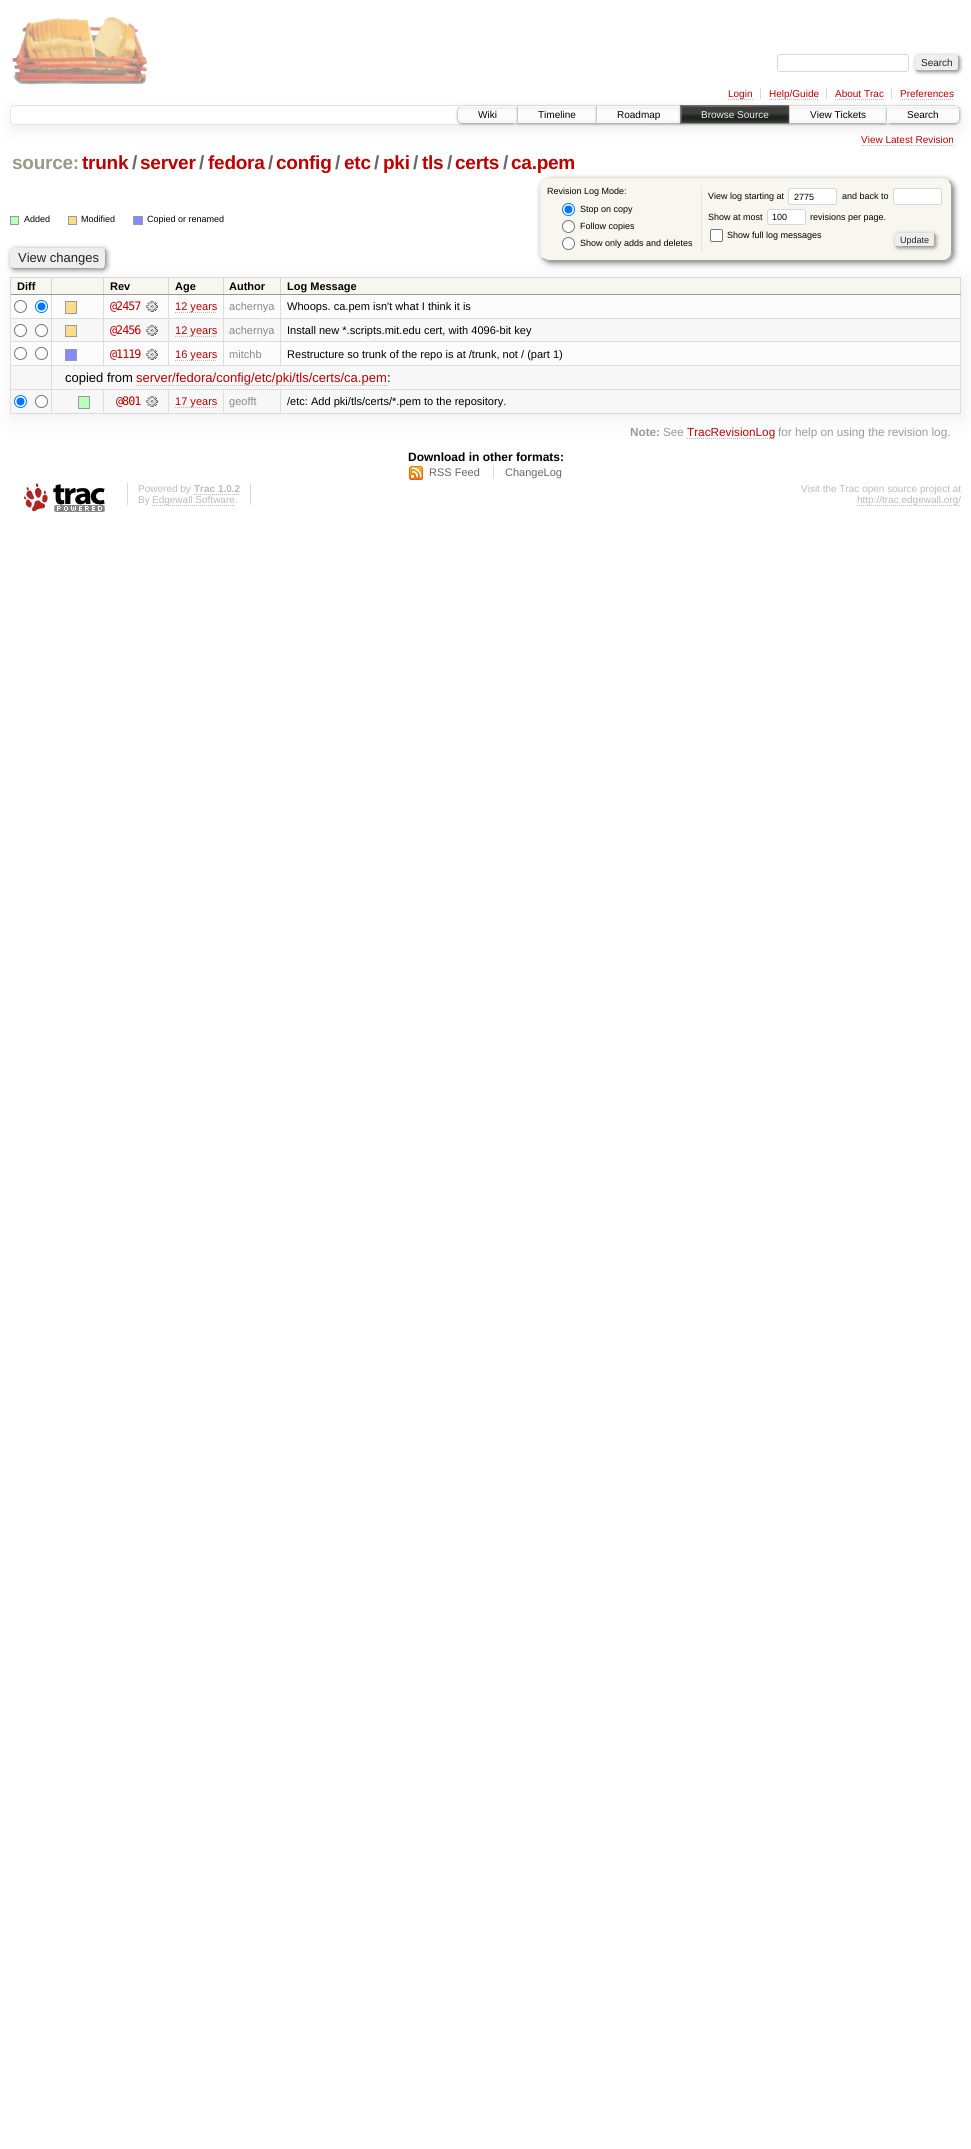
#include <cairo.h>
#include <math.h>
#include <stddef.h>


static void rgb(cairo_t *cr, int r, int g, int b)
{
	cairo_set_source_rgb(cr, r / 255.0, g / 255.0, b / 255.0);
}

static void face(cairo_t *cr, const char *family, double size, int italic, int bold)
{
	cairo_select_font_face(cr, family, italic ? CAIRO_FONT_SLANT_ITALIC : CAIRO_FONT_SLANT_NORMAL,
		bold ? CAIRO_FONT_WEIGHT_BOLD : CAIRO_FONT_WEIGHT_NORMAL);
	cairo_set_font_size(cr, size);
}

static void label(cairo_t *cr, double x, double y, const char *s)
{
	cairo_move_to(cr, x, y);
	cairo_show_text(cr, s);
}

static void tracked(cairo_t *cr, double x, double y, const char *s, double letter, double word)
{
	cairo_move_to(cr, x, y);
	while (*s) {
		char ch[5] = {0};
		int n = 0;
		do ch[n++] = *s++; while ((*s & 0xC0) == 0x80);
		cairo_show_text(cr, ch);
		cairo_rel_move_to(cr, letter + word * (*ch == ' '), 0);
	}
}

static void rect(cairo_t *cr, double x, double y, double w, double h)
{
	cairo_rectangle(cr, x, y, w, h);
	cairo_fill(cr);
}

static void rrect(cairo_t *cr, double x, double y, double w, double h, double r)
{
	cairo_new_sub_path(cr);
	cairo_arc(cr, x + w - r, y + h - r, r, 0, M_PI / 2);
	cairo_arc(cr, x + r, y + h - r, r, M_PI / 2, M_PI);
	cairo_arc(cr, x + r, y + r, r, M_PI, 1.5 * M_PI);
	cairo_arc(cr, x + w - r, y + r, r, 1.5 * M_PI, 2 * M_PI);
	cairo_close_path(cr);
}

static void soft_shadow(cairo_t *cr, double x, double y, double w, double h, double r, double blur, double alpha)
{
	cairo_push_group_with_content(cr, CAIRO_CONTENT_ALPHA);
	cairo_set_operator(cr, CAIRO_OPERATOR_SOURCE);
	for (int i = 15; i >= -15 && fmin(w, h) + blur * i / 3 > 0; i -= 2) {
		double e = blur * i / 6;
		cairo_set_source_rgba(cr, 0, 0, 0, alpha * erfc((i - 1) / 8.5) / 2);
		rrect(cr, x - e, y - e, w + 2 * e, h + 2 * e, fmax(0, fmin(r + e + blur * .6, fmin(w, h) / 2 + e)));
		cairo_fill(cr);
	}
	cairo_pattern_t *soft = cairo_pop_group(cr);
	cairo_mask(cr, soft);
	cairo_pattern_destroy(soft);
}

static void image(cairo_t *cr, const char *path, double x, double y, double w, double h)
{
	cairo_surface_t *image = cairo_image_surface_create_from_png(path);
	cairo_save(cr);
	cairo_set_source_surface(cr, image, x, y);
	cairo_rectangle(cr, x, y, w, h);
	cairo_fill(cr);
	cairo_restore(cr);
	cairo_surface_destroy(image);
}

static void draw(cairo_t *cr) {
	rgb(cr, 255, 255, 255);
	cairo_paint(cr);
	image(cr, "image0.png", 12, 17, 135, 68);
	rrect(cr, 777.5, 54.5, 131, 17, 2.5);
	rgb(cr, 215, 215, 215);
	cairo_set_line_width(cr, 1);
	cairo_stroke(cr);
	rgb(cr, 136, 136, 136);
	soft_shadow(cr, 916, 56, 44, 16, 3, 2, 1);
	rgb(cr, 238, 238, 238);
	rrect(cr, 915, 55, 44, 16, 3);
	cairo_fill(cr);
	cairo_new_path(cr);
	cairo_move_to(cr, 958, 56);
	cairo_curve_to(cr, 959.5, 58, 958.5, 61, 958.5, 63);
	cairo_curve_to(cr, 958.5, 71.5, 959, 70.5, 949.5, 70.5);
	cairo_line_to(cr, 937, 70.5);
	cairo_curve_to(cr, 934, 70.5, 918, 71.5, 916, 70);
	rgb(cr, 159, 159, 159);
	cairo_stroke(cr);
	cairo_new_path(cr);
	cairo_move_to(cr, 916, 70);
	cairo_curve_to(cr, 914.5, 68, 915.5, 65, 915.5, 63);
	cairo_curve_to(cr, 915.5, 54.5, 915, 55.5, 924.5, 55.5);
	cairo_line_to(cr, 937, 55.5);
	cairo_curve_to(cr, 940, 55.5, 956, 54.5, 958, 56);
	rgb(cr, 238, 238, 238);
	cairo_stroke(cr);
	face(cr, "Liberation Sans", 10, 0, 0);
	rgb(cr, 34, 34, 34);
	label(cr, 921, 66, "Search");
	cairo_save(cr);
	cairo_set_fill_rule(cr, CAIRO_FILL_RULE_EVEN_ODD);
	cairo_new_path(cr);
	cairo_move_to(cr, 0, 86);
	cairo_line_to(cr, 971, 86);
	cairo_line_to(cr, 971, 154);
	cairo_line_to(cr, 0, 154);
	cairo_close_path(cr);
	cairo_move_to(cr, 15, 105);
	cairo_line_to(cr, 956, 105);
	cairo_curve_to(cr, 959, 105, 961, 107, 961, 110);
	cairo_line_to(cr, 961, 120);
	cairo_curve_to(cr, 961, 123, 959, 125, 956, 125);
	cairo_line_to(cr, 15, 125);
	cairo_curve_to(cr, 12, 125, 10, 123, 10, 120);
	cairo_line_to(cr, 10, 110);
	cairo_curve_to(cr, 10, 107, 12, 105, 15, 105);
	cairo_close_path(cr);
	cairo_clip(cr);
	rgb(cr, 238, 238, 238);
	soft_shadow(cr, 10, 110, 951, 20, 5, 7.5, 1);
	cairo_restore(cr);
	rgb(cr, 215, 215, 215);
	rect(cr, 760, 88, 1, 11);
	cairo_new_path(cr);
	cairo_move_to(cr, 728, 99.5);
	cairo_line_to(cr, 753, 99.5);
	rgb(cr, 187, 187, 187);
	cairo_set_dash(cr, (double[]){1, 1}, 2, 0);
	cairo_stroke(cr);
	rgb(cr, 187, 0, 0);
	label(cr, 728, 97, "Login");
	rgb(cr, 215, 215, 215);
	rect(cr, 826, 88, 1, 11);
	cairo_new_path(cr);
	cairo_move_to(cr, 769, 99.5);
	cairo_line_to(cr, 819, 99.5);
	rgb(cr, 187, 187, 187);
	cairo_stroke(cr);
	rgb(cr, 187, 0, 0);
	label(cr, 769, 97, "Help/Guide");
	rgb(cr, 215, 215, 215);
	rect(cr, 891, 88, 1, 11);
	rgb(cr, 187, 0, 0);
	label(cr, 835, 97, "About Trac");
	cairo_new_path(cr);
	cairo_move_to(cr, 835, 99.5);
	cairo_line_to(cr, 884, 99.5);
	rgb(cr, 187, 187, 187);
	cairo_stroke(cr);
	rgb(cr, 187, 0, 0);
	label(cr, 900, 97, "Preferences");
	cairo_new_path(cr);
	cairo_move_to(cr, 900, 99.5);
	cairo_line_to(cr, 954, 99.5);
	rgb(cr, 187, 187, 187);
	cairo_stroke(cr);
	rrect(cr, 10.5, 105.5, 950, 19, 4.5);
	rgb(cr, 228, 228, 228);
	cairo_set_dash(cr, NULL, 0, 0);
	cairo_stroke(cr);
	rgb(cr, 255, 255, 255);
	cairo_new_path(cr);
	cairo_move_to(cr, 462, 105);
	cairo_line_to(cr, 518, 105);
	cairo_line_to(cr, 518, 124);
	cairo_line_to(cr, 462, 124);
	cairo_curve_to(cr, 459, 124, 457, 122, 457, 119);
	cairo_line_to(cr, 457, 110);
	cairo_curve_to(cr, 457, 107, 459, 105, 462, 105);
	cairo_close_path(cr);
	cairo_fill(cr);
	image(cr, "image1.png", 457, 107, 60, 17);
	cairo_new_path(cr);
	cairo_move_to(cr, 462, 105.5);
	cairo_line_to(cr, 517.5, 105.5);
	cairo_line_to(cr, 517.5, 123.5);
	cairo_line_to(cr, 462, 123.5);
	cairo_curve_to(cr, 459.5, 123.5, 457.5, 121.5, 457.5, 119);
	cairo_line_to(cr, 457.5, 110);
	cairo_curve_to(cr, 457.5, 107.5, 459.5, 105.5, 462, 105.5);
	cairo_close_path(cr);
	rgb(cr, 228, 228, 228);
	cairo_stroke(cr);
	cairo_save(cr);
	cairo_set_fill_rule(cr, CAIRO_FILL_RULE_EVEN_ODD);
	cairo_new_path(cr);
	cairo_move_to(cr, 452, 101);
	cairo_line_to(cr, 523, 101);
	cairo_line_to(cr, 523, 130);
	cairo_line_to(cr, 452, 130);
	cairo_close_path(cr);
	cairo_move_to(cr, 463, 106);
	cairo_line_to(cr, 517, 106);
	cairo_line_to(cr, 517, 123);
	cairo_line_to(cr, 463, 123);
	cairo_curve_to(cr, 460, 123, 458, 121, 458, 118);
	cairo_line_to(cr, 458, 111);
	cairo_curve_to(cr, 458, 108, 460, 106, 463, 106);
	cairo_close_path(cr);
	cairo_clip(cr);
	rgb(cr, 153, 153, 153);
	soft_shadow(cr, 458, 107, 59, 17, 5, 1.5, 1);
	cairo_restore(cr);
	rgb(cr, 0, 0, 0);
	label(cr, 478, 118, "Wiki");
	rgb(cr, 255, 255, 255);
	rect(cr, 518, 108, 2, 15);
	image(cr, "image2.png", 518, 107, 78, 16);
	cairo_rectangle(cr, 517.5, 105.5, 79, 18);
	rgb(cr, 228, 228, 228);
	cairo_stroke(cr);
	cairo_save(cr);
	cairo_set_fill_rule(cr, CAIRO_FILL_RULE_EVEN_ODD);
	cairo_new_path(cr);
	cairo_move_to(cr, 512, 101);
	cairo_line_to(cr, 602, 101);
	cairo_line_to(cr, 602, 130);
	cairo_line_to(cr, 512, 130);
	cairo_close_path(cr);
	cairo_move_to(cr, 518, 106);
	cairo_line_to(cr, 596, 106);
	cairo_line_to(cr, 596, 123);
	cairo_line_to(cr, 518, 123);
	cairo_close_path(cr);
	cairo_clip(cr);
	rgb(cr, 153, 153, 153);
	soft_shadow(cr, 518, 107, 78, 17, 0, 1.5, 1);
	cairo_restore(cr);
	rgb(cr, 0, 0, 0);
	label(cr, 538, 118, "Timeline");
	rgb(cr, 255, 255, 255);
	rect(cr, 597, 106, 2, 17);
	image(cr, "image3.png", 597, 107, 83, 16);
	cairo_rectangle(cr, 596.5, 105.5, 84, 18);
	rgb(cr, 228, 228, 228);
	cairo_stroke(cr);
	cairo_save(cr);
	cairo_set_fill_rule(cr, CAIRO_FILL_RULE_EVEN_ODD);
	cairo_new_path(cr);
	cairo_move_to(cr, 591, 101);
	cairo_line_to(cr, 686, 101);
	cairo_line_to(cr, 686, 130);
	cairo_line_to(cr, 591, 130);
	cairo_close_path(cr);
	cairo_move_to(cr, 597, 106);
	cairo_line_to(cr, 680, 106);
	cairo_line_to(cr, 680, 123);
	cairo_line_to(cr, 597, 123);
	cairo_close_path(cr);
	cairo_clip(cr);
	rgb(cr, 153, 153, 153);
	soft_shadow(cr, 597, 107, 83, 17, 0, 1.5, 1);
	cairo_restore(cr);
	rgb(cr, 0, 0, 0);
	label(cr, 617, 118, "Roadmap");
	cairo_rectangle(cr, 680.5, 105.5, 109, 18);
	rgb(cr, 102, 102, 102);
	cairo_stroke(cr);
	rgb(cr, 153, 153, 153);
	soft_shadow(cr, 681, 107, 108, 17, 0, 1.5, 1);
	rgb(cr, 0, 0, 0);
	rect(cr, 681, 106, 108, 17);
	image(cr, "image4.png", 681, 106, 108, 17);
	rgb(cr, 238, 238, 238);
	label(cr, 701, 118, "Browse Source");
	rgb(cr, 255, 255, 255);
	rect(cr, 790, 106, 2, 17);
	image(cr, "image5.png", 790, 107, 96, 16);
	cairo_rectangle(cr, 789.5, 105.5, 97, 18);
	rgb(cr, 228, 228, 228);
	cairo_stroke(cr);
	cairo_save(cr);
	cairo_set_fill_rule(cr, CAIRO_FILL_RULE_EVEN_ODD);
	cairo_new_path(cr);
	cairo_move_to(cr, 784, 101);
	cairo_line_to(cr, 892, 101);
	cairo_line_to(cr, 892, 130);
	cairo_line_to(cr, 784, 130);
	cairo_close_path(cr);
	cairo_move_to(cr, 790, 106);
	cairo_line_to(cr, 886, 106);
	cairo_line_to(cr, 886, 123);
	cairo_line_to(cr, 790, 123);
	cairo_close_path(cr);
	cairo_clip(cr);
	rgb(cr, 153, 153, 153);
	soft_shadow(cr, 790, 107, 96, 17, 0, 1.5, 1);
	cairo_restore(cr);
	rgb(cr, 0, 0, 0);
	label(cr, 810, 118, "View Tickets");
	rgb(cr, 255, 255, 255);
	cairo_new_path(cr);
	cairo_move_to(cr, 886, 105);
	cairo_line_to(cr, 955, 105);
	cairo_curve_to(cr, 958, 105, 960, 107, 960, 110);
	cairo_line_to(cr, 960, 119);
	cairo_curve_to(cr, 960, 122, 958, 124, 955, 124);
	cairo_line_to(cr, 886, 124);
	cairo_close_path(cr);
	cairo_fill(cr);
	image(cr, "image6.png", 887, 107, 73, 17);
	cairo_new_path(cr);
	cairo_move_to(cr, 886.5, 105.5);
	cairo_line_to(cr, 955, 105.5);
	cairo_curve_to(cr, 957.5, 105.5, 959.5, 107.5, 959.5, 110);
	cairo_line_to(cr, 959.5, 119);
	cairo_curve_to(cr, 959.5, 121.5, 957.5, 123.5, 955, 123.5);
	cairo_line_to(cr, 886.5, 123.5);
	cairo_close_path(cr);
	rgb(cr, 228, 228, 228);
	cairo_stroke(cr);
	cairo_save(cr);
	cairo_set_fill_rule(cr, CAIRO_FILL_RULE_EVEN_ODD);
	cairo_new_path(cr);
	cairo_move_to(cr, 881, 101);
	cairo_line_to(cr, 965, 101);
	cairo_line_to(cr, 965, 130);
	cairo_line_to(cr, 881, 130);
	cairo_close_path(cr);
	cairo_move_to(cr, 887, 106);
	cairo_line_to(cr, 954, 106);
	cairo_curve_to(cr, 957, 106, 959, 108, 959, 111);
	cairo_line_to(cr, 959, 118);
	cairo_curve_to(cr, 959, 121, 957, 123, 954, 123);
	cairo_line_to(cr, 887, 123);
	cairo_close_path(cr);
	cairo_clip(cr);
	rgb(cr, 153, 153, 153);
	soft_shadow(cr, 887, 107, 72, 17, 5, 1.5, 1);
	cairo_restore(cr);
	rgb(cr, 0, 0, 0);
	label(cr, 907, 118, "Search");
	rgb(cr, 187, 0, 0);
	label(cr, 861, 143, "View Latest Revision");
	cairo_new_path(cr);
	cairo_move_to(cr, 861, 145.5);
	cairo_line_to(cr, 954, 145.5);
	rgb(cr, 187, 187, 187);
	cairo_set_dash(cr, (double[]){1, 1}, 2, 0);
	cairo_stroke(cr);
	face(cr, "Liberation Sans", 19, 0, 1);
	rgb(cr, 153, 153, 136);
	tracked(cr, 12, 169, "source:", -0.25, 0);
	rgb(cr, 187, 0, 0);
	tracked(cr, 82, 169, "trunk", -0.25, 0);
	rgb(cr, 102, 102, 102);
	tracked(cr, 132, 169, "/", -0.25, 0);
	rgb(cr, 187, 0, 0);
	tracked(cr, 140, 169, "server", -0.25, 0);
	rgb(cr, 102, 102, 102);
	tracked(cr, 199, 169, "/", -0.25, 0);
	rgb(cr, 187, 0, 0);
	tracked(cr, 208, 169, "fedora", -0.25, 0);
	rgb(cr, 102, 102, 102);
	tracked(cr, 268, 169, "/", -0.25, 0);
	rgb(cr, 187, 0, 0);
	tracked(cr, 276, 169, "config", -0.25, 0);
	rgb(cr, 102, 102, 102);
	tracked(cr, 335, 169, "/", -0.25, 0);
	rgb(cr, 187, 0, 0);
	tracked(cr, 344, 169, "etc", -0.25, 0);
	rgb(cr, 102, 102, 102);
	tracked(cr, 374, 169, "/", -0.25, 0);
	rgb(cr, 187, 0, 0);
	tracked(cr, 383, 169, "pki", -0.25, 0);
	rgb(cr, 102, 102, 102);
	tracked(cr, 413, 169, "/", -0.25, 0);
	rgb(cr, 187, 0, 0);
	tracked(cr, 422, 169, "tls", -0.25, 0);
	rgb(cr, 102, 102, 102);
	tracked(cr, 447, 169, "/", -0.25, 0);
	rgb(cr, 187, 0, 0);
	tracked(cr, 455, 169, "certs", -0.25, 0);
	rgb(cr, 102, 102, 102);
	tracked(cr, 503, 169, "/", -0.25, 0);
	rgb(cr, 187, 0, 0);
	tracked(cr, 511, 169, "ca.pem", -0.25, 0);
	rgb(cr, 187, 255, 187);
	cairo_rectangle(cr, 10.5, 216.5, 8, 8);
	cairo_fill_preserve(cr);
	rgb(cr, 153, 153, 153);
	cairo_set_dash(cr, NULL, 0, 0);
	cairo_stroke(cr);
	face(cr, "Liberation Sans", 9, 0, 0);
	rgb(cr, 0, 0, 0);
	label(cr, 24, 222, "Added");
	rgb(cr, 255, 221, 136);
	cairo_rectangle(cr, 68.5, 216.5, 8, 8);
	cairo_fill_preserve(cr);
	rgb(cr, 153, 153, 153);
	cairo_stroke(cr);
	rgb(cr, 0, 0, 0);
	label(cr, 81, 222, "Modified");
	rgb(cr, 136, 136, 255);
	cairo_rectangle(cr, 133.5, 216.5, 9, 8);
	cairo_fill_preserve(cr);
	rgb(cr, 153, 153, 153);
	cairo_stroke(cr);
	rgb(cr, 0, 0, 0);
	label(cr, 147, 222, "Copied or renamed");
	rgb(cr, 119, 119, 119);
	soft_shadow(cr, 542, 180, 412, 83, 9, 3, 1);
	rgb(cr, 238, 238, 238);
	soft_shadow(cr, 13, 281, 951, 137, 0, 10, 1);
	rgb(cr, 247, 247, 240);
	rrect(cr, 540, 178, 412, 83, 9);
	cairo_fill(cr);
	cairo_new_path(cr);
	cairo_move_to(cr, 949, 181);
	cairo_curve_to(cr, 950.5, 182.5, 951.5, 184.5, 951.5, 187);
	cairo_line_to(cr, 951.5, 252);
	cairo_curve_to(cr, 951.5, 254.5, 950.5, 256.5, 949, 258);
	cairo_curve_to(cr, 947.5, 259.5, 945.5, 260.5, 943, 260.5);
	cairo_line_to(cr, 549, 260.5);
	cairo_curve_to(cr, 546.5, 260.5, 544.5, 259.5, 543, 258);
	rgb(cr, 159, 159, 159);
	cairo_stroke(cr);
	cairo_new_path(cr);
	cairo_move_to(cr, 543, 258);
	cairo_curve_to(cr, 541.5, 256.5, 540.5, 254.5, 540.5, 252);
	cairo_line_to(cr, 540.5, 187);
	cairo_curve_to(cr, 540.5, 184.5, 541.5, 182.5, 543, 181);
	cairo_curve_to(cr, 544.5, 179.5, 546.5, 178.5, 549, 178.5);
	cairo_line_to(cr, 943, 178.5);
	cairo_curve_to(cr, 945.5, 178.5, 947.5, 179.5, 949, 181);
	rgb(cr, 238, 238, 238);
	cairo_stroke(cr);
	cairo_new_path(cr);
	cairo_move_to(cr, 701.5, 186);
	cairo_line_to(cr, 701.5, 252);
	rgb(cr, 215, 215, 215);
	cairo_set_dash(cr, (double[]){1, 1}, 2, 0);
	cairo_stroke(cr);
	rgb(cr, 0, 0, 0);
	label(cr, 547, 194, "Revision Log Mode:");
	rgb(cr, 255, 255, 255);
	cairo_new_path(cr);
	cairo_arc(cr, 568.5, 209.5, 6, 0, 2 * M_PI);
	cairo_fill_preserve(cr);
	rgb(cr, 0, 117, 255);
	cairo_set_dash(cr, NULL, 0, 0);
	cairo_stroke(cr);
	cairo_arc(cr, 568.5, 209.5, 4, 0, 2 * M_PI);
	cairo_fill(cr);
	rgb(cr, 0, 0, 0);
	label(cr, 580, 212, "Stop on copy");
	rgb(cr, 255, 255, 255);
	cairo_new_path(cr);
	cairo_arc(cr, 568.5, 226.5, 6, 0, 2 * M_PI);
	cairo_fill_preserve(cr);
	rgb(cr, 118, 118, 118);
	cairo_stroke(cr);
	rgb(cr, 0, 0, 0);
	label(cr, 580, 229, "Follow copies");
	rgb(cr, 255, 255, 255);
	cairo_new_path(cr);
	cairo_arc(cr, 568.5, 243.5, 6, 0, 2 * M_PI);
	cairo_fill_preserve(cr);
	rgb(cr, 118, 118, 118);
	cairo_stroke(cr);
	rgb(cr, 0, 0, 0);
	label(cr, 580, 246, "Show only adds and deletes");
	label(cr, 708, 199, "View log starting at");
	rgb(cr, 255, 255, 255);
	rrect(cr, 788.5, 188.5, 48, 16, 2);
	cairo_fill_preserve(cr);
	rgb(cr, 215, 215, 215);
	cairo_stroke(cr);
	rgb(cr, 0, 0, 0);
	label(cr, 794, 200, "2775");
	label(cr, 842, 199, "and back to");
	rgb(cr, 255, 255, 255);
	rrect(cr, 893.5, 188.5, 48, 16, 2);
	cairo_fill_preserve(cr);
	rgb(cr, 215, 215, 215);
	cairo_stroke(cr);
	rgb(cr, 0, 0, 0);
	label(cr, 708, 220, "Show at most");
	rgb(cr, 255, 255, 255);
	rrect(cr, 767.5, 209.5, 38, 15, 2);
	cairo_fill_preserve(cr);
	rgb(cr, 215, 215, 215);
	cairo_stroke(cr);
	rgb(cr, 0, 0, 0);
	label(cr, 772, 220, "100");
	label(cr, 810, 220, "revisions per page.");
	rgb(cr, 255, 255, 255);
	rrect(cr, 710.5, 229.5, 12, 12, 1.5);
	cairo_fill_preserve(cr);
	rgb(cr, 118, 118, 118);
	cairo_stroke(cr);
	rgb(cr, 0, 0, 0);
	label(cr, 727, 238, "Show full log messages");
	rgb(cr, 136, 136, 136);
	soft_shadow(cr, 896, 234, 40, 14, 2.5, 2, 1);
	rgb(cr, 238, 238, 238);
	rrect(cr, 895, 233, 40, 14, 2.5);
	cairo_fill(cr);
	cairo_new_path(cr);
	cairo_move_to(cr, 934, 234);
	cairo_curve_to(cr, 935, 235.5, 934.5, 238.5, 934.5, 240);
	cairo_curve_to(cr, 934.5, 247.5, 934.5, 246.5, 926.5, 246.5);
	cairo_line_to(cr, 903.5, 246.5);
	cairo_curve_to(cr, 903, 246.5, 897.5, 247.5, 896, 246);
	rgb(cr, 159, 159, 159);
	cairo_stroke(cr);
	cairo_new_path(cr);
	cairo_move_to(cr, 896, 246);
	cairo_curve_to(cr, 895, 244.5, 895.5, 241.5, 895.5, 240);
	cairo_curve_to(cr, 895.5, 232.5, 895.5, 233.5, 903.5, 233.5);
	cairo_line_to(cr, 926.5, 233.5);
	cairo_curve_to(cr, 927, 233.5, 932.5, 232.5, 934, 234);
	rgb(cr, 238, 238, 238);
	cairo_stroke(cr);
	rgb(cr, 34, 34, 34);
	label(cr, 900, 243, "Update");
	rgb(cr, 247, 247, 240);
	rect(cr, 11, 278, 949, 16);
	rgb(cr, 215, 215, 215);
	rect(cr, 280, 277, 681, 1);
	rgb(cr, 221, 221, 221);
	rect(cr, 10, 318, 951, 1);
	rect(cr, 10, 341, 951, 1);
	rect(cr, 10, 365, 951, 1);
	rect(cr, 10, 389, 951, 1);
	rect(cr, 960, 294, 1, 120);
	rgb(cr, 215, 215, 215);
	rect(cr, 960, 277, 1, 18);
	rgb(cr, 252, 252, 252);
	rect(cr, 11, 295, 949, 23);
	rgb(cr, 247, 247, 247);
	rect(cr, 16, 319, 944, 22);
	rgb(cr, 252, 252, 252);
	rect(cr, 11, 342, 949, 23);
	rgb(cr, 221, 221, 221);
	rect(cr, 280, 294, 1, 72);
	rgb(cr, 153, 153, 153);
	rect(cr, 280, 294, 681, 1);
	rgb(cr, 215, 215, 215);
	rect(cr, 280, 277, 1, 18);
	rect(cr, 223, 277, 58, 1);
	rgb(cr, 221, 221, 221);
	rect(cr, 223, 294, 1, 72);
	rgb(cr, 153, 153, 153);
	rect(cr, 223, 294, 58, 1);
	rgb(cr, 215, 215, 215);
	rect(cr, 223, 277, 1, 18);
	rect(cr, 168, 277, 56, 1);
	rgb(cr, 221, 221, 221);
	rect(cr, 168, 294, 1, 72);
	rgb(cr, 153, 153, 153);
	rect(cr, 168, 294, 56, 1);
	rgb(cr, 215, 215, 215);
	rect(cr, 168, 277, 1, 18);
	rect(cr, 103, 277, 66, 1);
	rgb(cr, 221, 221, 221);
	rect(cr, 103, 294, 1, 72);
	rgb(cr, 153, 153, 153);
	rect(cr, 103, 294, 66, 1);
	rgb(cr, 215, 215, 215);
	rect(cr, 103, 277, 1, 18);
	rect(cr, 51, 277, 53, 1);
	rgb(cr, 247, 247, 247);
	rect(cr, 16, 366, 944, 23);
	rect(cr, 11, 390, 949, 23);
	rgb(cr, 221, 221, 221);
	rect(cr, 280, 413, 681, 1);
	rect(cr, 280, 389, 1, 25);
	rect(cr, 223, 413, 58, 1);
	rect(cr, 223, 389, 1, 25);
	rect(cr, 168, 413, 56, 1);
	rect(cr, 168, 389, 1, 25);
	rect(cr, 103, 413, 66, 1);
	rect(cr, 103, 389, 1, 25);
	rect(cr, 51, 413, 53, 1);
	rect(cr, 51, 294, 1, 120);
	rgb(cr, 153, 153, 153);
	rect(cr, 51, 294, 53, 1);
	rgb(cr, 215, 215, 215);
	rect(cr, 51, 277, 1, 18);
	rect(cr, 10, 277, 42, 1);
	rgb(cr, 221, 221, 221);
	rect(cr, 10, 413, 42, 1);
	rect(cr, 10, 294, 1, 120);
	rgb(cr, 153, 153, 153);
	rect(cr, 10, 294, 42, 1);
	rgb(cr, 215, 215, 215);
	rect(cr, 10, 277, 1, 18);
	rgb(cr, 136, 136, 136);
	soft_shadow(cr, 11, 249, 96, 21, 4, 2.5, 1);
	rgb(cr, 238, 238, 238);
	rrect(cr, 10, 248, 96, 21, 4);
	cairo_fill(cr);
	cairo_new_path(cr);
	cairo_move_to(cr, 104.5, 249.5);
	cairo_curve_to(cr, 106.5, 251.5, 105.5, 256, 105.5, 258.5);
	cairo_curve_to(cr, 105.5, 272.5, 104.5, 268.5, 87.5, 268.5);
	cairo_line_to(cr, 14, 268.5);
	cairo_line_to(cr, 11.5, 267.5);
	rgb(cr, 159, 159, 159);
	cairo_stroke(cr);
	cairo_new_path(cr);
	cairo_move_to(cr, 11.5, 267.5);
	cairo_curve_to(cr, 9.5, 265.5, 10.5, 261, 10.5, 258.5);
	cairo_curve_to(cr, 10.5, 244.5, 11.5, 248.5, 28.5, 248.5);
	cairo_line_to(cr, 102, 248.5);
	cairo_line_to(cr, 104.5, 249.5);
	rgb(cr, 238, 238, 238);
	cairo_stroke(cr);
	face(cr, "Liberation Sans", 13, 0, 0);
	rgb(cr, 34, 34, 34);
	label(cr, 18, 262, "View changes");
	face(cr, "Liberation Sans", 11, 0, 1);
	rgb(cr, 0, 0, 0);
	label(cr, 17, 290, "Diff");
	label(cr, 110, 290, "Rev");
	label(cr, 175, 290, "Age");
	label(cr, 229, 290, "Author");
	label(cr, 287, 290, "Log Message");
	rgb(cr, 255, 255, 255);
	cairo_new_path(cr);
	cairo_arc(cr, 20.5, 306.5, 6, 0, 2 * M_PI);
	cairo_fill_preserve(cr);
	rgb(cr, 118, 118, 118);
	cairo_stroke(cr);
	rgb(cr, 255, 255, 255);
	cairo_arc(cr, 41.5, 306.5, 6, 0, 2 * M_PI);
	cairo_fill_preserve(cr);
	rgb(cr, 0, 117, 255);
	cairo_stroke(cr);
	cairo_arc(cr, 41.5, 306.5, 4, 0, 2 * M_PI);
	cairo_fill(cr);
	rgb(cr, 255, 221, 136);
	cairo_rectangle(cr, 65.5, 301.5, 11, 12);
	cairo_fill_preserve(cr);
	rgb(cr, 153, 153, 153);
	cairo_stroke(cr);
	face(cr, "DejaVu Sans Mono", 11.75, 0, 0);
	rgb(cr, 187, 0, 0);
	tracked(cr, 110, 310, "@2457", -1, 0);
	image(cr, "image7.png", 146, 301, 12, 11);
	cairo_new_path(cr);
	cairo_move_to(cr, 175, 312.5);
	cairo_line_to(cr, 217, 312.5);
	rgb(cr, 187, 187, 187);
	cairo_set_dash(cr, (double[]){1, 1}, 2, 0);
	cairo_stroke(cr);
	face(cr, "Liberation Sans", 11.05, 0, 0);
	rgb(cr, 187, 0, 0);
	label(cr, 175, 310, "12 years");
	rgb(cr, 136, 136, 136);
	label(cr, 229, 310, "achernya");
	rgb(cr, 0, 0, 0);
	label(cr, 287, 310, "Whoops. ca.pem isn't what I think it is");
	rgb(cr, 255, 255, 255);
	cairo_new_path(cr);
	cairo_arc(cr, 20.5, 330.5, 6, 0, 2 * M_PI);
	cairo_fill_preserve(cr);
	rgb(cr, 118, 118, 118);
	cairo_set_dash(cr, NULL, 0, 0);
	cairo_stroke(cr);
	rgb(cr, 255, 255, 255);
	cairo_arc(cr, 41.5, 330.5, 6, 0, 2 * M_PI);
	cairo_fill_preserve(cr);
	rgb(cr, 118, 118, 118);
	cairo_stroke(cr);
	rgb(cr, 255, 221, 136);
	cairo_rectangle(cr, 65.5, 325.5, 11, 11);
	cairo_fill_preserve(cr);
	rgb(cr, 153, 153, 153);
	cairo_stroke(cr);
	face(cr, "DejaVu Sans Mono", 11.75, 0, 0);
	rgb(cr, 187, 0, 0);
	tracked(cr, 110, 334, "@2456", -1, 0);
	image(cr, "image8.png", 146, 325, 12, 11);
	cairo_new_path(cr);
	cairo_move_to(cr, 175, 336.5);
	cairo_line_to(cr, 217, 336.5);
	rgb(cr, 187, 187, 187);
	cairo_set_dash(cr, (double[]){1, 1}, 2, 0);
	cairo_stroke(cr);
	face(cr, "Liberation Sans", 11.05, 0, 0);
	rgb(cr, 187, 0, 0);
	label(cr, 175, 334, "12 years");
	rgb(cr, 136, 136, 136);
	label(cr, 229, 334, "achernya");
	rgb(cr, 0, 0, 0);
	label(cr, 287, 334, "Install new *.scripts.mit.edu cert, with 4096-bit key");
	rgb(cr, 255, 255, 255);
	cairo_new_path(cr);
	cairo_arc(cr, 20.5, 353.5, 6, 0, 2 * M_PI);
	cairo_fill_preserve(cr);
	rgb(cr, 118, 118, 118);
	cairo_set_dash(cr, NULL, 0, 0);
	cairo_stroke(cr);
	rgb(cr, 255, 255, 255);
	cairo_arc(cr, 41.5, 353.5, 6, 0, 2 * M_PI);
	cairo_fill_preserve(cr);
	rgb(cr, 118, 118, 118);
	cairo_stroke(cr);
	rgb(cr, 136, 136, 255);
	cairo_rectangle(cr, 65.5, 349.5, 11, 11);
	cairo_fill_preserve(cr);
	rgb(cr, 153, 153, 153);
	cairo_stroke(cr);
	face(cr, "DejaVu Sans Mono", 11.75, 0, 0);
	rgb(cr, 187, 0, 0);
	tracked(cr, 110, 358, "@1119", -1, 0);
	image(cr, "image7.png", 146, 349, 12, 11);
	cairo_new_path(cr);
	cairo_move_to(cr, 175, 360.5);
	cairo_line_to(cr, 217, 360.5);
	rgb(cr, 187, 187, 187);
	cairo_set_dash(cr, (double[]){1, 1}, 2, 0);
	cairo_stroke(cr);
	face(cr, "Liberation Sans", 11.05, 0, 0);
	rgb(cr, 187, 0, 0);
	label(cr, 175, 358, "16 years");
	rgb(cr, 136, 136, 136);
	label(cr, 229, 358, "mitchb");
	rgb(cr, 0, 0, 0);
	label(cr, 287, 358, "Restructure so trunk of the repo is at /trunk, not / (part 1)");
	face(cr, "Liberation Sans", 13, 0, 0);
	label(cr, 65, 382, "copied from");
	rgb(cr, 187, 0, 0);
	label(cr, 136, 382, "server/fedora/config/etc/pki/tls/certs/ca.pem");
	cairo_new_path(cr);
	cairo_move_to(cr, 136, 385.5);
	cairo_line_to(cr, 387, 385.5);
	rgb(cr, 187, 187, 187);
	cairo_stroke(cr);
	rgb(cr, 0, 0, 0);
	label(cr, 387, 382, ":");
	rgb(cr, 255, 255, 255);
	cairo_new_path(cr);
	cairo_arc(cr, 20.5, 401.5, 6, 0, 2 * M_PI);
	cairo_fill_preserve(cr);
	rgb(cr, 0, 117, 255);
	cairo_set_dash(cr, NULL, 0, 0);
	cairo_stroke(cr);
	cairo_arc(cr, 20.5, 401.5, 4, 0, 2 * M_PI);
	cairo_fill(cr);
	rgb(cr, 255, 255, 255);
	cairo_arc(cr, 41.5, 401.5, 6, 0, 2 * M_PI);
	cairo_fill_preserve(cr);
	rgb(cr, 118, 118, 118);
	cairo_stroke(cr);
	rgb(cr, 187, 255, 187);
	cairo_rectangle(cr, 78.5, 396.5, 11, 12);
	cairo_fill_preserve(cr);
	rgb(cr, 153, 153, 153);
	cairo_stroke(cr);
	face(cr, "DejaVu Sans Mono", 11.75, 0, 0);
	rgb(cr, 187, 0, 0);
	tracked(cr, 116, 405, "@801", -1, 0);
	image(cr, "image8.png", 146, 396, 12, 11);
	cairo_new_path(cr);
	cairo_move_to(cr, 175, 407.5);
	cairo_line_to(cr, 217, 407.5);
	rgb(cr, 187, 187, 187);
	cairo_set_dash(cr, (double[]){1, 1}, 2, 0);
	cairo_stroke(cr);
	face(cr, "Liberation Sans", 11.05, 0, 0);
	rgb(cr, 187, 0, 0);
	label(cr, 175, 405, "17 years");
	rgb(cr, 136, 136, 136);
	label(cr, 229, 405, "geofft");
	rgb(cr, 0, 0, 0);
	label(cr, 287, 405, "/etc: Add pki/tls/certs/*.pem to the repository.");
	face(cr, "Liberation Sans", 11.75, 0, 1);
	rgb(cr, 153, 153, 153);
	label(cr, 630, 436, "Note:");
	face(cr, "Liberation Sans", 11.75, 0, 0);
	label(cr, 663, 436, "See");
	cairo_new_path(cr);
	cairo_move_to(cr, 687, 438.5);
	cairo_line_to(cr, 775, 438.5);
	rgb(cr, 187, 187, 187);
	cairo_stroke(cr);
	rgb(cr, 187, 0, 0);
	label(cr, 687, 436, "TracRevisionLog");
	rgb(cr, 153, 153, 153);
	label(cr, 778, 436, "for help on using the revision log.");
	face(cr, "Liberation Sans", 12, 0, 1);
	rgb(cr, 0, 0, 0);
	label(cr, 408, 461, "Download in other formats:");
	image(cr, "image9.png", 409, 466, 14, 14);
	face(cr, "Liberation Sans", 11, 0, 0);
	rgb(cr, 102, 102, 102);
	label(cr, 429, 476, "RSS Feed");
	rgb(cr, 215, 215, 215);
	rect(cr, 493, 466, 1, 12);
	rgb(cr, 102, 102, 102);
	label(cr, 505, 476, "ChangeLog");
	image(cr, "image10.png", 24, 483, 81, 29);
	rgb(cr, 215, 215, 215);
	rect(cr, 250, 483, 1, 22);
	rect(cr, 127, 483, 1, 22);
	face(cr, "Liberation Sans", 10, 0, 0);
	rgb(cr, 187, 187, 187);
	label(cr, 138, 492, "Powered by");
	face(cr, "Liberation Sans", 10, 0, 1);
	label(cr, 194, 492, "Trac 1.0.2");
	cairo_new_path(cr);
	cairo_move_to(cr, 194, 494.5);
	cairo_line_to(cr, 240, 494.5);
	cairo_stroke(cr);
	face(cr, "Liberation Sans", 10, 0, 0);
	label(cr, 138, 503, "By");
	cairo_new_path(cr);
	cairo_move_to(cr, 152, 505.5);
	cairo_line_to(cr, 235, 505.5);
	cairo_stroke(cr);
	label(cr, 152, 503, "Edgewall Software.");
	label(cr, 801, 492, "Visit the Trac open source project at");
	cairo_new_path(cr);
	cairo_move_to(cr, 857, 505.5);
	cairo_line_to(cr, 961, 505.5);
	cairo_stroke(cr);
	label(cr, 857, 503, "http://trac.edgewall.org/");
}

int main(void) {
	cairo_surface_t *surface = cairo_image_surface_create(CAIRO_FORMAT_RGB24, 971, 2149);
	cairo_t *cr = cairo_create(surface);
	cairo_font_options_t *options = cairo_font_options_create();
	cairo_font_options_set_hint_metrics(options, CAIRO_HINT_METRICS_OFF);
	cairo_font_options_set_hint_style(options, CAIRO_HINT_STYLE_NONE);
	cairo_set_font_options(cr, options);
	cairo_set_miter_limit(cr, 4);
	draw(cr);
	cairo_surface_write_to_png(surface, "render.png");
	cairo_font_options_destroy(options);
	cairo_destroy(cr);
	cairo_surface_destroy(surface);
	return 0;
}
